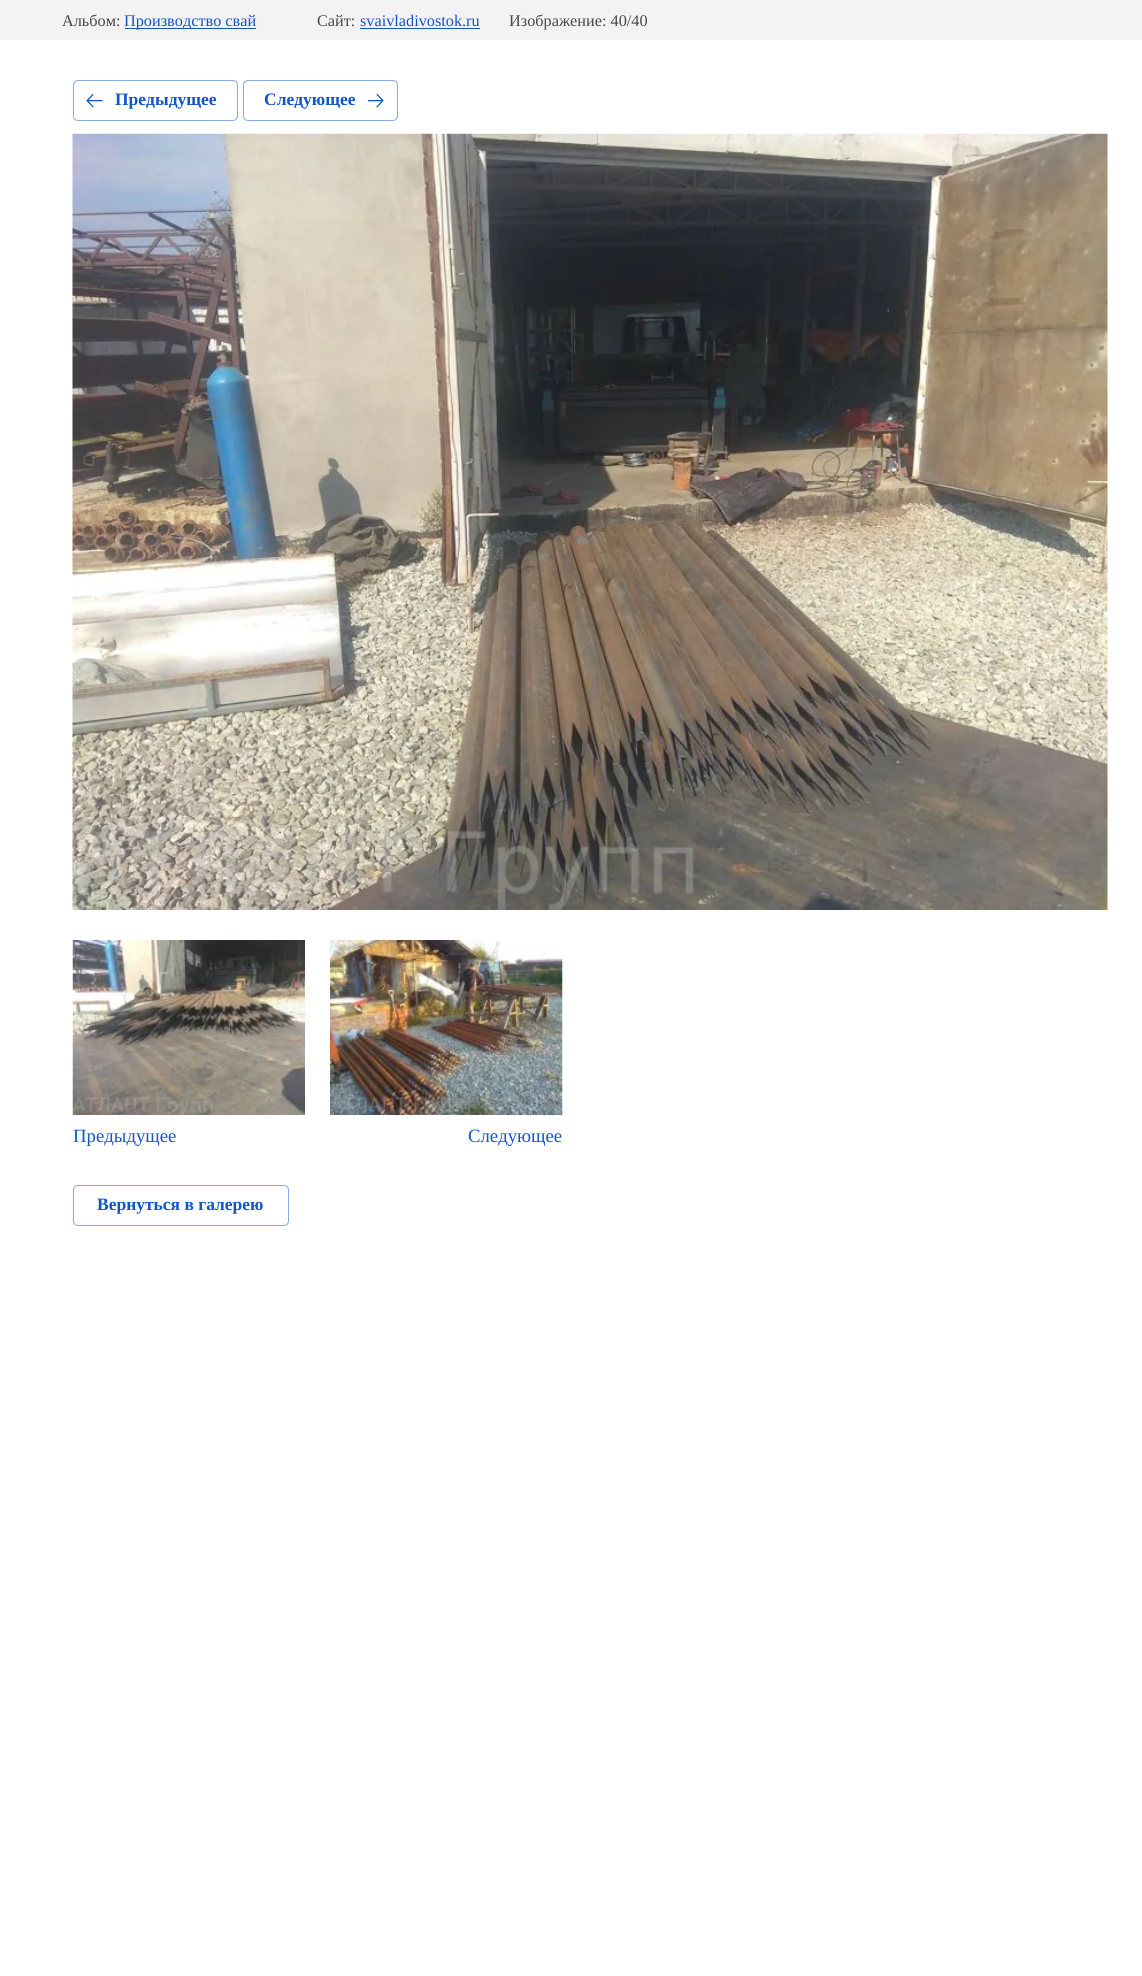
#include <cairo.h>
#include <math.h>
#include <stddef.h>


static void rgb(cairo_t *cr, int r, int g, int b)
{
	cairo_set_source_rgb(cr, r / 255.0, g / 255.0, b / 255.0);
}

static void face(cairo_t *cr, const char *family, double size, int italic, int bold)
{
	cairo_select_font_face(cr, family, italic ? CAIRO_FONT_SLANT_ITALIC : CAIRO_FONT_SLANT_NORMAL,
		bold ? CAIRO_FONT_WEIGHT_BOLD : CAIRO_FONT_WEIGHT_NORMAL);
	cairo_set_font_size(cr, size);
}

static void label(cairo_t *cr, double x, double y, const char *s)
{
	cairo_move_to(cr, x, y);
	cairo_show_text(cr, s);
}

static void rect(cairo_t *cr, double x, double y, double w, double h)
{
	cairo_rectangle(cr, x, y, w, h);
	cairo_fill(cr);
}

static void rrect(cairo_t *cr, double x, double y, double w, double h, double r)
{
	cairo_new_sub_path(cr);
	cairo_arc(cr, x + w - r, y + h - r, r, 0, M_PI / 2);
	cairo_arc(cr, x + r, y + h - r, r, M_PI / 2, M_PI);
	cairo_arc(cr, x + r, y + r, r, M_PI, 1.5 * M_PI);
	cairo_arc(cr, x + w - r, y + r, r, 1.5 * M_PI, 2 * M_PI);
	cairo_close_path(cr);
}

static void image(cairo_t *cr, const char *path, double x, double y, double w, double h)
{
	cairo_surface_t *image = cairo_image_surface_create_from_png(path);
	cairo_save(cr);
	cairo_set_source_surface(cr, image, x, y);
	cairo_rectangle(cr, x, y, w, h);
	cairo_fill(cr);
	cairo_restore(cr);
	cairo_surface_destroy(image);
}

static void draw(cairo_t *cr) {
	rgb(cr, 255, 255, 255);
	cairo_paint(cr);
	rgb(cr, 243, 243, 243);
	rect(cr, 0, 0, 1142, 40);
	face(cr, "Liberation Serif", 16.25, 0, 0);
	rgb(cr, 72, 72, 72);
	label(cr, 62, 26, "Альбом:");
	rgb(cr, 17, 85, 204);
	rect(cr, 125, 28, 131, 1);
	label(cr, 124, 26, "Производство свай");
	rgb(cr, 72, 72, 72);
	label(cr, 317, 26, "Сайт:");
	rgb(cr, 17, 85, 204);
	label(cr, 360, 26, "svaivladivostok.ru");
	rect(cr, 360, 28, 120, 1);
	rgb(cr, 72, 72, 72);
	label(cr, 509, 26, "Изображение: 40/40");
	rrect(cr, 73.5, 80.5, 164, 40, 4.5);
	rgb(cr, 136, 170, 230);
	cairo_set_line_width(cr, 1);
	cairo_stroke(cr);
	image(cr, "image0.png", 86, 94, 17, 14);
	face(cr, "Liberation Serif", 17.5, 0, 1);
	rgb(cr, 17, 85, 204);
	label(cr, 115, 105, "Предыдущее");
	rrect(cr, 243.5, 80.5, 154, 40, 4.5);
	rgb(cr, 136, 170, 230);
	cairo_stroke(cr);
	rgb(cr, 17, 85, 204);
	label(cr, 264, 105, "Следующее");
	image(cr, "image1.png", 368, 94, 16, 14);
	image(cr, "image2.png", 72, 133, 1036, 777);
	image(cr, "image3.png", 72, 940, 233, 175);
	face(cr, "Liberation Serif", 18.75, 0, 0);
	label(cr, 73, 1142, "Предыдущее");
	image(cr, "image4.png", 330, 940, 233, 175);
	label(cr, 468, 1142, "Следующее");
	rrect(cr, 73.5, 1185.5, 215, 40, 4.5);
	rgb(cr, 136, 170, 230);
	cairo_stroke(cr);
	face(cr, "Liberation Serif", 17.5, 0, 1);
	rgb(cr, 17, 85, 204);
	label(cr, 97, 1210, "Вернуться в галерею");
}

int main(void) {
	cairo_surface_t *surface = cairo_image_surface_create(CAIRO_FORMAT_RGB24, 1142, 1976);
	cairo_t *cr = cairo_create(surface);
	cairo_font_options_t *options = cairo_font_options_create();
	cairo_font_options_set_hint_metrics(options, CAIRO_HINT_METRICS_OFF);
	cairo_font_options_set_hint_style(options, CAIRO_HINT_STYLE_NONE);
	cairo_set_font_options(cr, options);
	cairo_set_miter_limit(cr, 4);
	draw(cr);
	cairo_surface_write_to_png(surface, "render.png");
	cairo_font_options_destroy(options);
	cairo_destroy(cr);
	cairo_surface_destroy(surface);
	return 0;
}
